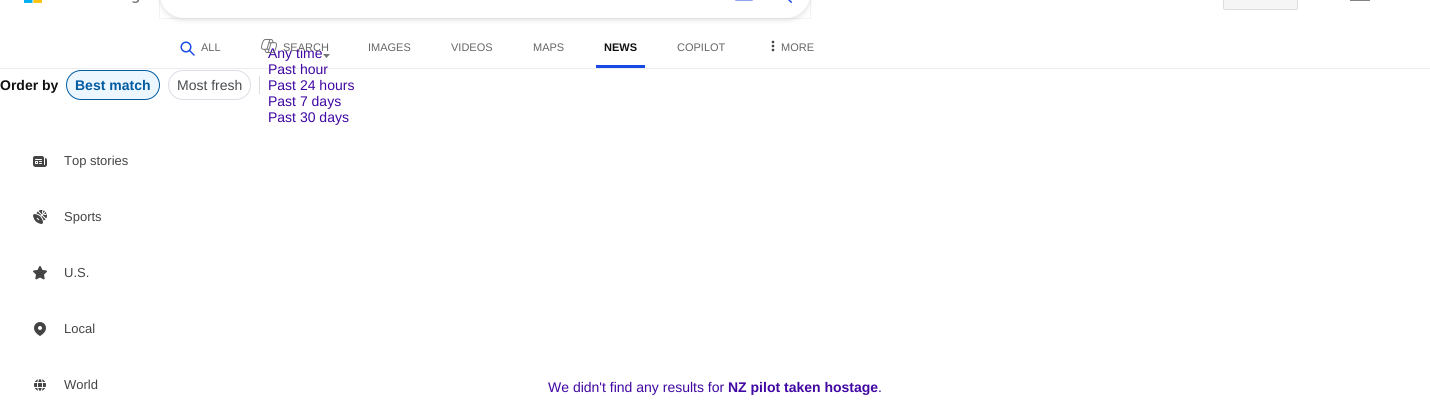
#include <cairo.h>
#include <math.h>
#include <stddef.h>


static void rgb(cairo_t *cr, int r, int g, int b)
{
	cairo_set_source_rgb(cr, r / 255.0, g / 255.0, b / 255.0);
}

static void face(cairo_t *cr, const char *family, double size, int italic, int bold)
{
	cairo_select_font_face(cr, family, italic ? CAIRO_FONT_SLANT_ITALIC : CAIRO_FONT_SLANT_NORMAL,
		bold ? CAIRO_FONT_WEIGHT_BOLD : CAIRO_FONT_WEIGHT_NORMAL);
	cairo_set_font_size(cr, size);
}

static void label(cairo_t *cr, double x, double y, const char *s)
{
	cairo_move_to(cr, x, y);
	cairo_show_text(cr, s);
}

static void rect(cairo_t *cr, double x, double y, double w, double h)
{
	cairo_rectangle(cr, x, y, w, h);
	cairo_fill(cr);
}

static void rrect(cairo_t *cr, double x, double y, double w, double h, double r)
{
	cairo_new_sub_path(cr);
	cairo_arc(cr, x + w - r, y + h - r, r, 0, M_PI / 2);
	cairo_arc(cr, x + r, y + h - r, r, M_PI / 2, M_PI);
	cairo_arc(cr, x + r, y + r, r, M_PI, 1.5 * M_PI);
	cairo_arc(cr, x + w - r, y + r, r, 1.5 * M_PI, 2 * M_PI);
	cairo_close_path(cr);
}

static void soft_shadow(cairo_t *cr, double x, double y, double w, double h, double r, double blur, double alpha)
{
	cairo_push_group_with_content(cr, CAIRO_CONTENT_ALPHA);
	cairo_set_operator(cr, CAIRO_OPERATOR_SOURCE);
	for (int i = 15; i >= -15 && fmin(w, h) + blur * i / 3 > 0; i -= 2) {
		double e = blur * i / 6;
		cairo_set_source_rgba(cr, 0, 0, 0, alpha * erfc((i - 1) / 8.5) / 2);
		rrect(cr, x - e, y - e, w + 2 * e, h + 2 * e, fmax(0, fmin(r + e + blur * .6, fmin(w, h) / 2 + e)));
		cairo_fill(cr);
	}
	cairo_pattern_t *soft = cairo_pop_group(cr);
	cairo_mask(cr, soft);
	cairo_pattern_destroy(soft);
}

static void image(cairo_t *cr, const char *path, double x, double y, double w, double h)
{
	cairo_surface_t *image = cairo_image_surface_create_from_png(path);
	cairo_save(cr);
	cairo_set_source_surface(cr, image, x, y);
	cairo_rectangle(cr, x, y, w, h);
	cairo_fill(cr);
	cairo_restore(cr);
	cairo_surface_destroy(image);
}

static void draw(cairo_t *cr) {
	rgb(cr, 255, 255, 255);
	cairo_paint(cr);
	rgb(cr, 236, 236, 236);
	rect(cr, 0, 68, 1430, 1);
	image(cr, "image0.png", 24, 0, 116, 3);
	rgb(cr, 0, 0, 0);
	soft_shadow(cr, 159, -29, 652, 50, 25, 2, 0.09);
	cairo_rectangle(cr, 159.5, -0.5, 651, 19);
	cairo_set_source_rgba(cr, 0, 0, 0, 0.05);
	cairo_set_line_width(cr, 1);
	cairo_stroke(cr);
	rgb(cr, 255, 255, 255);
	rrect(cr, 160, -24, 650, 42, 24);
	cairo_fill(cr);
	image(cr, "image1.png", 735, 0, 18, 1);
	image(cr, "image2.png", 788, 0, 4, 3);
	rgb(cr, 245, 245, 245);
	rrect(cr, 1223.5, -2.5, 74, 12, 1.5);
	cairo_fill_preserve(cr);
	rgb(cr, 221, 221, 221);
	cairo_stroke(cr);
	rgb(cr, 130, 131, 134);
	rect(cr, 1350, 0, 20, 1);
	image(cr, "image3.png", 180, 41, 15, 15);
	face(cr, "Liberation Sans", 11, 0, 0);
	rgb(cr, 102, 102, 102);
	label(cr, 201, 51, "ALL");
	face(cr, "Liberation Sans", 14, 0, 0);
	rgb(cr, 64, 7, 162);
	label(cr, 268, 58, "Any time");
	image(cr, "image4.png", 261, 39, 16, 14);
	face(cr, "Liberation Sans", 11, 0, 0);
	rgb(cr, 102, 102, 102);
	label(cr, 283, 51, "SEARCH");
	label(cr, 368, 51, "IMAGES");
	label(cr, 451, 51, "VIDEOS");
	label(cr, 533, 51, "MAPS");
	face(cr, "Liberation Sans", 11, 0, 1);
	rgb(cr, 17, 17, 17);
	label(cr, 604, 51, "NEWS");
	rgb(cr, 23, 74, 228);
	rect(cr, 596, 65, 49, 3);
	face(cr, "Liberation Sans", 11, 0, 0);
	rgb(cr, 102, 102, 102);
	label(cr, 677, 51, "COPILOT");
	image(cr, "image5.png", 771, 40, 4, 12);
	label(cr, 781, 51, "MORE");
	face(cr, "Liberation Sans", 14, 0, 1);
	rgb(cr, 17, 17, 17);
	label(cr, 0, 90, "Order by");
	rgb(cr, 235, 246, 255);
	rrect(cr, 66.5, 70.5, 93, 29, 14.5);
	cairo_fill_preserve(cr);
	rgb(cr, 0, 91, 161);
	cairo_stroke(cr);
	label(cr, 75, 90, "Best match");
	rrect(cr, 168.5, 70.5, 82, 29, 14.5);
	rgb(cr, 218, 222, 229);
	cairo_stroke(cr);
	face(cr, "Liberation Sans", 14, 0, 0);
	rgb(cr, 71, 75, 80);
	label(cr, 177, 90, "Most fresh");
	rgb(cr, 221, 221, 221);
	rect(cr, 259, 76, 1, 18);
	image(cr, "image6.png", 323, 54, 7, 4);
	rgb(cr, 64, 7, 162);
	label(cr, 268, 74, "Past hour");
	label(cr, 268, 90, "Past 24 hours");
	label(cr, 268, 106, "Past 7 days");
	label(cr, 268, 122, "Past 30 days");
	label(cr, 548, 392, "We didn't find any results for");
	face(cr, "Liberation Sans", 14, 0, 1);
	label(cr, 728, 392, "NZ pilot taken hostage");
	face(cr, "Liberation Sans", 14, 0, 0);
	label(cr, 878, 392, ".");
	image(cr, "image7.png", 33, 156, 14, 11);
	face(cr, "Liberation Sans", 13, 0, 0);
	rgb(cr, 68, 68, 68);
	label(cr, 64, 165, "Top stories");
	image(cr, "image8.png", 33, 210, 14, 14);
	label(cr, 64, 221, "Sports");
	image(cr, "image9.png", 33, 266, 14, 14);
	label(cr, 64, 277, "U.S.");
	image(cr, "image10.png", 34, 322, 12, 14);
	label(cr, 64, 333, "Local");
	image(cr, "image11.png", 34, 379, 12, 12);
	label(cr, 64, 389, "World");
}

int main(void) {
	cairo_surface_t *surface = cairo_image_surface_create(CAIRO_FORMAT_RGB24, 1430, 400);
	cairo_t *cr = cairo_create(surface);
	cairo_font_options_t *options = cairo_font_options_create();
	cairo_font_options_set_hint_metrics(options, CAIRO_HINT_METRICS_OFF);
	cairo_font_options_set_hint_style(options, CAIRO_HINT_STYLE_NONE);
	cairo_set_font_options(cr, options);
	cairo_set_miter_limit(cr, 4);
	draw(cr);
	cairo_surface_write_to_png(surface, "render.png");
	cairo_font_options_destroy(options);
	cairo_destroy(cr);
	cairo_surface_destroy(surface);
	return 0;
}
